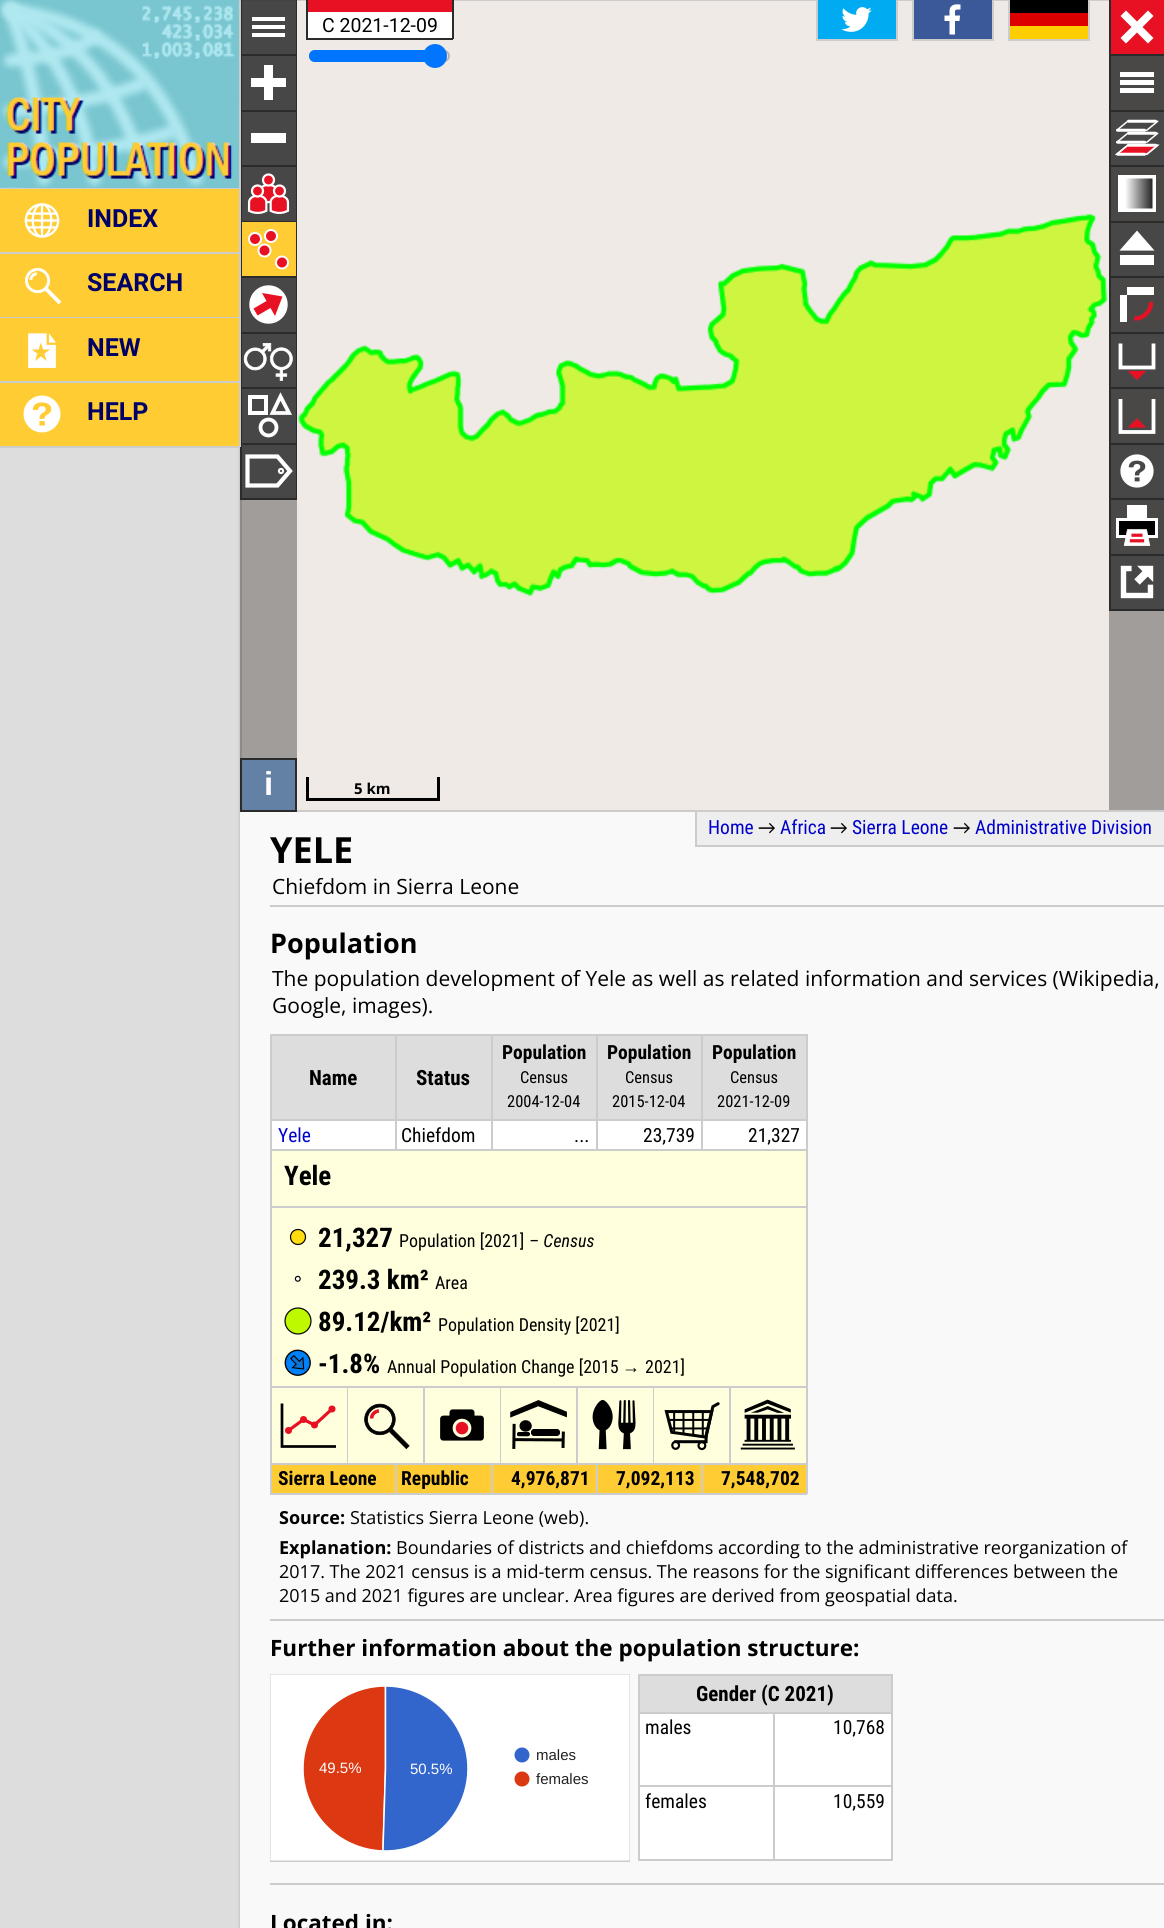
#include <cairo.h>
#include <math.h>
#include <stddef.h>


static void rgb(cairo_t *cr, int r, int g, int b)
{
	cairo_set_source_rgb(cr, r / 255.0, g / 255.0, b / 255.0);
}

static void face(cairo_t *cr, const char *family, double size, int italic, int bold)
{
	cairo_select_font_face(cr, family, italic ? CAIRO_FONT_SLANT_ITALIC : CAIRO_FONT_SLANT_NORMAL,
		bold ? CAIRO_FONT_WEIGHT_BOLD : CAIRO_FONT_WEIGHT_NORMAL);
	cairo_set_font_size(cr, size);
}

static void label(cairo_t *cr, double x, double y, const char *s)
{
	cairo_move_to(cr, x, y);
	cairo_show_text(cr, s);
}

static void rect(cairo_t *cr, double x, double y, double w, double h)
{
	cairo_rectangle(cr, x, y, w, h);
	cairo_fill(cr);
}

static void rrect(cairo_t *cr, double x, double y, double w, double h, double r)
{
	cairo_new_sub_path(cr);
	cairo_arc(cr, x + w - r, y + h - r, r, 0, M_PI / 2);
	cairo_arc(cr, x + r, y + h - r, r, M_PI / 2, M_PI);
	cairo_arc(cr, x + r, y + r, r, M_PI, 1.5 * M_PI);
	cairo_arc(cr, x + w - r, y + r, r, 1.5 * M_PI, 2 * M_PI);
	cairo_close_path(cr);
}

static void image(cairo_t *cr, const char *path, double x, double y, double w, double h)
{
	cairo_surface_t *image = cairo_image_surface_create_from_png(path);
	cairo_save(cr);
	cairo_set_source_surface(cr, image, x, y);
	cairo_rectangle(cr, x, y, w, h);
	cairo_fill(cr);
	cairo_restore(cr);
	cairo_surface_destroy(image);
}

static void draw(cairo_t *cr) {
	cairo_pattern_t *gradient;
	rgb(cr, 249, 249, 249);
	cairo_paint(cr);
	image(cr, "image0.png", 0, 0, 239, 188);
	rgb(cr, 240, 234, 230);
	cairo_rectangle(cr, 241, 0, 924, 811);
	cairo_fill_preserve(cr);
	rgb(cr, 204, 204, 204);
	cairo_stroke(cr);
	cairo_set_source_rgba(cr, 0.169, 0.169, 0.169, 0.4);
	rect(cr, 240, 0, 57, 810);
	rgb(cr, 43, 43, 43);
	rect(cr, 240, 54, 57, 2);
	rect(cr, 240, 110, 57, 2);
	rect(cr, 240, 165, 57, 2);
	rect(cr, 240, 221, 57, 1);
	rect(cr, 240, 276, 57, 2);
	rect(cr, 240, 332, 57, 2);
	rect(cr, 240, 387, 57, 2);
	rect(cr, 240, 443, 57, 2);
	rect(cr, 240, 444, 2, 54);
	rgb(cr, 204, 204, 204);
	rect(cr, 239, 0, 2, 447);
	rect(cr, 0, 188, 240, 1);
	rgb(cr, 255, 204, 51);
	rect(cr, 0, 189, 239, 63);
	rgb(cr, 204, 204, 204);
	rect(cr, 0, 252, 240, 2);
	image(cr, "image1.png", 24, 203, 36, 35);
	face(cr, "Roboto", 25, 0, 1);
	rgb(cr, 0, 0, 102);
	label(cr, 87, 227, "INDEX");
	rgb(cr, 255, 204, 51);
	rect(cr, 0, 254, 239, 63);
	rgb(cr, 204, 204, 204);
	rect(cr, 0, 317, 240, 1);
	image(cr, "image2.png", 25, 268, 37, 37);
	rgb(cr, 0, 0, 102);
	label(cr, 87, 291, "SEARCH");
	rgb(cr, 255, 204, 51);
	rect(cr, 0, 318, 239, 63);
	rgb(cr, 204, 204, 204);
	rect(cr, 0, 381, 240, 2);
	image(cr, "image3.png", 28, 333, 28, 35);
	rgb(cr, 0, 0, 102);
	label(cr, 87, 356, "NEW");
	rgb(cr, 255, 204, 51);
	rect(cr, 0, 383, 239, 63);
	rgb(cr, 204, 204, 204);
	rect(cr, 0, 446, 240, 2);
	image(cr, "image4.png", 23, 395, 38, 38);
	rgb(cr, 0, 0, 102);
	label(cr, 87, 420, "HELP");
	cairo_set_source_rgba(cr, 0.169, 0.169, 0.169, 0.75);
	rect(cr, 242, 0, 54, 54);
	rgb(cr, 43, 43, 43);
	rect(cr, 241, 0, 1, 54);
	rgb(cr, 255, 255, 255);
	rect(cr, 252, 17, 33, 4);
	rgb(cr, 43, 43, 43);
	rect(cr, 296, 0, 1, 54);
	rgb(cr, 255, 255, 255);
	rect(cr, 252, 25, 33, 4);
	rect(cr, 252, 33, 33, 4);
	cairo_set_source_rgba(cr, 0.169, 0.169, 0.169, 0.75);
	rect(cr, 242, 56, 54, 54);
	rgb(cr, 43, 43, 43);
	rect(cr, 241, 56, 1, 54);
	rgb(cr, 255, 255, 255);
	rect(cr, 251, 78, 35, 9);
	rect(cr, 264, 65, 9, 35);
	rgb(cr, 43, 43, 43);
	rect(cr, 296, 56, 1, 54);
	cairo_set_source_rgba(cr, 0.169, 0.169, 0.169, 0.75);
	rect(cr, 242, 112, 54, 53);
	rgb(cr, 43, 43, 43);
	rect(cr, 241, 111, 1, 54);
	rgb(cr, 255, 255, 255);
	rect(cr, 251, 133, 35, 10);
	rgb(cr, 43, 43, 43);
	rect(cr, 296, 111, 1, 54);
	cairo_set_source_rgba(cr, 0.169, 0.169, 0.169, 0.75);
	rect(cr, 242, 167, 54, 54);
	rgb(cr, 43, 43, 43);
	rect(cr, 241, 167, 1, 54);
	image(cr, "image5.png", 247, 173, 43, 41);
	rect(cr, 296, 167, 1, 54);
	rgb(cr, 255, 204, 51);
	rect(cr, 242, 222, 54, 54);
	rgb(cr, 43, 43, 43);
	rect(cr, 241, 222, 1, 54);
	rgb(cr, 232, 17, 35);
	cairo_arc(cr, 255, 239, 6, 0, 2 * M_PI);
	cairo_fill_preserve(cr);
	rgb(cr, 255, 255, 255);
	cairo_stroke(cr);
	rgb(cr, 232, 17, 35);
	cairo_arc(cr, 271, 236, 6, 0, 2 * M_PI);
	cairo_fill_preserve(cr);
	rgb(cr, 255, 255, 255);
	cairo_stroke(cr);
	rgb(cr, 43, 43, 43);
	rect(cr, 296, 222, 1, 54);
	rgb(cr, 232, 17, 35);
	cairo_arc(cr, 264.5, 250.5, 6, 0, 2 * M_PI);
	cairo_fill_preserve(cr);
	rgb(cr, 255, 255, 255);
	cairo_stroke(cr);
	rgb(cr, 232, 17, 35);
	cairo_arc(cr, 282, 262.5, 6, 0, 2 * M_PI);
	cairo_fill_preserve(cr);
	rgb(cr, 255, 255, 255);
	cairo_stroke(cr);
	cairo_set_source_rgba(cr, 0.169, 0.169, 0.169, 0.75);
	rect(cr, 242, 278, 54, 54);
	rgb(cr, 43, 43, 43);
	rect(cr, 241, 278, 1, 54);
	rgb(cr, 255, 255, 255);
	cairo_arc(cr, 268.5, 304.5, 18.5, 0, 2 * M_PI);
	cairo_fill_preserve(cr);
	cairo_set_line_width(cr, 1.4);
	cairo_stroke(cr);
	rgb(cr, 43, 43, 43);
	rect(cr, 296, 278, 1, 54);
	rgb(cr, 232, 17, 35);
	cairo_new_path(cr);
	cairo_move_to(cr, 253.5, 308.5);
	cairo_line_to(cr, 266.5, 301);
	cairo_line_to(cr, 262, 293);
	cairo_line_to(cr, 282.5, 296.5);
	cairo_line_to(cr, 275, 316);
	cairo_line_to(cr, 270.5, 308);
	cairo_line_to(cr, 257.5, 315.5);
	cairo_close_path(cr);
	cairo_fill(cr);
	cairo_set_source_rgba(cr, 0.169, 0.169, 0.169, 0.75);
	rect(cr, 242, 334, 54, 53);
	rgb(cr, 43, 43, 43);
	rect(cr, 241, 333, 1, 54);
	image(cr, "image6.png", 243, 343, 50, 38);
	rect(cr, 296, 333, 1, 54);
	cairo_set_source_rgba(cr, 0.169, 0.169, 0.169, 0.75);
	rect(cr, 242, 389, 54, 54);
	rgb(cr, 43, 43, 43);
	rect(cr, 241, 389, 1, 54);
	cairo_rectangle(cr, 250, 397, 16, 16);
	rgb(cr, 255, 255, 255);
	cairo_set_line_width(cr, 4);
	cairo_stroke(cr);
	cairo_new_path(cr);
	cairo_move_to(cr, 272.5, 413);
	cairo_line_to(cr, 289, 413);
	cairo_line_to(cr, 280.5, 396.5);
	cairo_close_path(cr);
	cairo_set_line_width(cr, 3.8);
	cairo_stroke(cr);
	rgb(cr, 43, 43, 43);
	rect(cr, 296, 389, 1, 54);
	cairo_arc(cr, 268.5, 427.5, 8, 0, 2 * M_PI);
	rgb(cr, 255, 255, 255);
	cairo_stroke(cr);
	cairo_set_source_rgba(cr, 0.169, 0.169, 0.169, 0.75);
	rect(cr, 242, 445, 54, 53);
	rgb(cr, 43, 43, 43);
	rect(cr, 240, 498, 57, 2);
	cairo_new_path(cr);
	cairo_move_to(cr, 247.5, 456.5);
	cairo_line_to(cr, 277.5, 456.5);
	cairo_line_to(cr, 290, 471);
	cairo_line_to(cr, 277.5, 485.5);
	cairo_line_to(cr, 247.5, 485.5);
	cairo_close_path(cr);
	rgb(cr, 255, 255, 255);
	cairo_set_line_width(cr, 4.2);
	cairo_stroke(cr);
	rgb(cr, 43, 43, 43);
	rect(cr, 296, 444, 1, 54);
	cairo_arc(cr, 281, 471, 2.1, 0, 2 * M_PI);
	rgb(cr, 255, 255, 255);
	cairo_set_line_width(cr, 2.1);
	cairo_stroke(cr);
	rgb(cr, 232, 17, 35);
	rect(cr, 308, 0, 144, 12);
	rgb(cr, 43, 43, 43);
	rect(cr, 452, 0, 2, 39);
	rect(cr, 306, 38, 147, 2);
	rect(cr, 306, 0, 2, 39);
	rgb(cr, 255, 255, 255);
	rect(cr, 308, 12, 144, 26);
	face(cr, "Roboto", 19.5, 0, 0);
	rgb(cr, 0, 0, 0);
	label(cr, 322, 32, "C 2021-12-09");
	rgb(cr, 239, 239, 239);
	rrect(cr, 310, 51, 139, 10, 5);
	cairo_fill_preserve(cr);
	rgb(cr, 178, 178, 178);
	cairo_set_line_width(cr, 2);
	cairo_stroke(cr);
	rgb(cr, 0, 117, 255);
	cairo_new_path(cr);
	cairo_move_to(cr, 315, 50);
	cairo_line_to(cr, 435, 50);
	cairo_line_to(cr, 435, 62);
	cairo_line_to(cr, 315, 62);
	cairo_curve_to(cr, 311.5, 62, 309, 59.5, 309, 56);
	cairo_curve_to(cr, 309, 52.5, 311.5, 50, 315, 50);
	cairo_close_path(cr);
	cairo_fill(cr);
	cairo_arc(cr, 435, 56, 12, 0, 2 * M_PI);
	cairo_fill(cr);
	cairo_set_source_rgba(cr, 0.169, 0.169, 0.169, 0.4);
	rect(cr, 1109, 112, 55, 698);
	rgb(cr, 232, 17, 35);
	rect(cr, 1111, 0, 53, 54);
	rgb(cr, 43, 43, 43);
	rect(cr, 1109, 54, 55, 2);
	rect(cr, 1109, 0, 2, 54);
	rgb(cr, 255, 255, 255);
	cairo_new_path(cr);
	cairo_move_to(cr, 1126, 10.5);
	cairo_line_to(cr, 1137, 21.5);
	cairo_line_to(cr, 1148, 10.5);
	cairo_line_to(cr, 1153.5, 16);
	cairo_line_to(cr, 1142.5, 27);
	cairo_line_to(cr, 1153.5, 38);
	cairo_line_to(cr, 1148, 43.5);
	cairo_line_to(cr, 1137, 32.5);
	cairo_line_to(cr, 1126, 43.5);
	cairo_line_to(cr, 1120.5, 38);
	cairo_line_to(cr, 1131.5, 27);
	cairo_line_to(cr, 1120.5, 16);
	cairo_close_path(cr);
	cairo_fill(cr);
	rgb(cr, 73, 72, 71);
	rect(cr, 1111, 56, 53, 54);
	rgb(cr, 43, 43, 43);
	rect(cr, 1109, 110, 55, 2);
	rect(cr, 1109, 56, 2, 54);
	rgb(cr, 255, 255, 255);
	rect(cr, 1120, 72, 34, 5);
	rect(cr, 1120, 80, 34, 5);
	rect(cr, 1120, 88, 34, 5);
	cairo_set_source_rgba(cr, 0.169, 0.169, 0.169, 0.75);
	rect(cr, 1111, 112, 53, 53);
	rgb(cr, 43, 43, 43);
	rect(cr, 1109, 165, 55, 2);
	rect(cr, 1109, 111, 2, 54);
	image(cr, "image7.png", 1114, 119, 46, 37);
	rgb(cr, 73, 72, 71);
	rect(cr, 1111, 167, 53, 54);
	rgb(cr, 43, 43, 43);
	rect(cr, 1109, 221, 55, 2);
	rect(cr, 1109, 167, 2, 54);
	gradient = cairo_pattern_create_linear(1120, 177, 1157, 177);
	cairo_pattern_add_color_stop_rgba(gradient, 0.14, 1, 1, 1, 1);
	cairo_pattern_add_color_stop_rgba(gradient, 1, 0, 0, 0, 1);
	cairo_set_source(cr, gradient);
	cairo_pattern_destroy(gradient);
	rect(cr, 1121, 178, 32, 31);
	cairo_rectangle(cr, 1119.75, 176.75, 34.5, 33.5);
	rgb(cr, 255, 255, 255);
	cairo_set_line_width(cr, 3.5);
	cairo_stroke(cr);
	cairo_set_source_rgba(cr, 0.169, 0.169, 0.169, 0.75);
	rect(cr, 1111, 223, 53, 53);
	rgb(cr, 43, 43, 43);
	rect(cr, 1109, 276, 55, 2);
	rect(cr, 1109, 222, 2, 54);
	rgb(cr, 255, 255, 255);
	cairo_new_path(cr);
	cairo_move_to(cr, 1123, 249);
	cairo_line_to(cr, 1151, 249);
	cairo_line_to(cr, 1137, 233);
	cairo_close_path(cr);
	cairo_fill_preserve(cr);
	cairo_set_line_width(cr, 3.2);
	cairo_stroke(cr);
	rect(cr, 1120, 255, 34, 10);
	rgb(cr, 73, 72, 71);
	rect(cr, 1111, 278, 53, 54);
	rgb(cr, 43, 43, 43);
	rect(cr, 1109, 332, 55, 2);
	rect(cr, 1109, 278, 2, 54);
	image(cr, "image8.png", 1120, 287, 34, 35);
	cairo_set_source_rgba(cr, 0.169, 0.169, 0.169, 0.75);
	rect(cr, 1111, 334, 53, 53);
	rgb(cr, 43, 43, 43);
	rect(cr, 1109, 387, 55, 2);
	rect(cr, 1109, 333, 2, 54);
	cairo_new_path(cr);
	cairo_move_to(cr, 1120.5, 343.5);
	cairo_line_to(cr, 1120.5, 367.5);
	cairo_line_to(cr, 1153.5, 367.5);
	cairo_line_to(cr, 1153.5, 343.5);
	rgb(cr, 255, 255, 255);
	cairo_set_line_width(cr, 3.8);
	cairo_stroke(cr);
	cairo_new_path(cr);
	cairo_move_to(cr, 1137, 376.5);
	cairo_line_to(cr, 1134, 373.5);
	cairo_line_to(cr, 1140, 373.5);
	cairo_close_path(cr);
	rgb(cr, 232, 17, 35);
	cairo_set_line_width(cr, 5.2);
	cairo_stroke(cr);
	rgb(cr, 73, 72, 71);
	rect(cr, 1111, 389, 53, 54);
	rgb(cr, 43, 43, 43);
	rect(cr, 1109, 443, 55, 2);
	rect(cr, 1109, 389, 2, 54);
	cairo_new_path(cr);
	cairo_move_to(cr, 1120.5, 399);
	cairo_line_to(cr, 1120.5, 432);
	cairo_line_to(cr, 1153.5, 432);
	cairo_line_to(cr, 1153.5, 399);
	rgb(cr, 255, 255, 255);
	cairo_set_line_width(cr, 3.8);
	cairo_stroke(cr);
	cairo_new_path(cr);
	cairo_move_to(cr, 1137, 422);
	cairo_line_to(cr, 1134, 425);
	cairo_line_to(cr, 1140, 425);
	cairo_close_path(cr);
	rgb(cr, 232, 17, 35);
	cairo_set_line_width(cr, 5.2);
	cairo_stroke(cr);
	cairo_set_source_rgba(cr, 0.169, 0.169, 0.169, 0.75);
	rect(cr, 1111, 445, 53, 53);
	rgb(cr, 43, 43, 43);
	rect(cr, 1109, 498, 55, 2);
	rect(cr, 1109, 444, 2, 54);
	image(cr, "image9.png", 1120, 454, 34, 34);
	rgb(cr, 73, 72, 71);
	rect(cr, 1111, 500, 53, 54);
	rgb(cr, 43, 43, 43);
	rect(cr, 1109, 554, 55, 2);
	rect(cr, 1109, 500, 2, 54);
	image(cr, "image10.png", 1116, 505, 42, 41);
	cairo_set_source_rgba(cr, 0.169, 0.169, 0.169, 0.75);
	rect(cr, 1111, 556, 53, 53);
	rgb(cr, 43, 43, 43);
	rect(cr, 1109, 609, 55, 2);
	rect(cr, 1109, 555, 2, 54);
	image(cr, "image11.png", 1120, 565, 34, 34);
	cairo_set_source_rgba(cr, 1, 1, 1, 0.4);
	rect(cr, 242, 760, 53, 50);
	cairo_set_source_rgba(cr, 0, 0.235, 0.533, 0.5);
	cairo_rectangle(cr, 241, 759, 55, 52);
	cairo_fill_preserve(cr);
	rgb(cr, 43, 43, 43);
	cairo_set_line_width(cr, 2);
	cairo_stroke(cr);
	face(cr, "Liberation Sans", 33, 0, 1);
	rgb(cr, 255, 255, 255);
	label(cr, 264, 795, "i");
	image(cr, "image12.png", 298, 214, 810, 382);
	rgb(cr, 0, 0, 0);
	rect(cr, 437, 777, 3, 24);
	rect(cr, 306, 798, 134, 3);
	rect(cr, 306, 777, 3, 24);
	face(cr, "Open Sans", 15, 0, 1);
	label(cr, 354, 794, "5 km");
	rgb(cr, 204, 204, 204);
	rect(cr, 896, 0, 2, 41);
	rect(cr, 816, 39, 81, 2);
	rect(cr, 816, 0, 2, 41);
	image(cr, "image13.png", 818, 0, 78, 39);
	rect(cr, 992, 0, 2, 41);
	rect(cr, 912, 39, 81, 2);
	rect(cr, 912, 0, 2, 41);
	rgb(cr, 59, 89, 152);
	rect(cr, 914, 0, 78, 39);
	rgb(cr, 255, 255, 255);
	cairo_new_path(cr);
	cairo_move_to(cr, 955, 34.5);
	cairo_line_to(cr, 955, 21);
	cairo_line_to(cr, 959.5, 21);
	cairo_line_to(cr, 960, 15.5);
	cairo_line_to(cr, 955, 15.5);
	cairo_curve_to(cr, 955, 9.5, 954, 9.5, 960.5, 9.5);
	cairo_line_to(cr, 960.5, 4.5);
	cairo_curve_to(cr, 956, 4, 950.5, 4, 949.5, 10);
	cairo_line_to(cr, 949.5, 15.5);
	cairo_line_to(cr, 944.5, 15.5);
	cairo_line_to(cr, 944.5, 21);
	cairo_line_to(cr, 949.5, 21);
	cairo_line_to(cr, 949.5, 34.5);
	cairo_close_path(cr);
	cairo_fill(cr);
	rgb(cr, 204, 204, 204);
	rect(cr, 1088, 0, 2, 41);
	rect(cr, 1008, 39, 81, 2);
	rect(cr, 1008, 0, 2, 41);
	rgb(cr, 0, 0, 0);
	rect(cr, 1010, 0, 78, 13);
	rgb(cr, 221, 0, 0);
	rect(cr, 1010, 13, 78, 13);
	rgb(cr, 255, 206, 0);
	rect(cr, 1010, 26, 78, 13);
	rgb(cr, 221, 221, 221);
	rect(cr, 0, 448, 238, 1480);
	image(cr, "image14.png", 238, 448, 2, 1480);
	rgb(cr, 238, 238, 238);
	rect(cr, 697, 812, 467, 33);
	rgb(cr, 204, 204, 204);
	rect(cr, 695, 845, 469, 2);
	rect(cr, 695, 812, 2, 34);
	face(cr, "Roboto Condensed", 19.5, 0, 0);
	rgb(cr, 0, 0, 204);
	label(cr, 708, 834, "Home");
	face(cr, "Carlito", 19.5, 0, 0);
	rgb(cr, 0, 0, 0);
	label(cr, 758, 834, "→");
	face(cr, "Roboto Condensed", 19.5, 0, 0);
	rgb(cr, 0, 0, 204);
	label(cr, 780, 834, "Africa");
	face(cr, "Carlito", 19.5, 0, 0);
	rgb(cr, 0, 0, 0);
	label(cr, 830, 834, "→");
	face(cr, "Roboto Condensed", 19.5, 0, 0);
	rgb(cr, 0, 0, 204);
	label(cr, 852, 834, "Sierra Leone");
	face(cr, "Carlito", 19.5, 0, 0);
	rgb(cr, 0, 0, 0);
	label(cr, 953, 834, "→");
	face(cr, "Roboto Condensed", 19.5, 0, 0);
	rgb(cr, 0, 0, 204);
	label(cr, 975, 834, "Administrative Division");
	rgb(cr, 204, 204, 204);
	rect(cr, 270, 905, 894, 2);
	face(cr, "Open Sans", 36, 0, 1);
	rgb(cr, 0, 0, 0);
	label(cr, 270, 863, "YELE");
	face(cr, "Open Sans", 21, 0, 0);
	label(cr, 272, 894, "Chiefdom in Sierra Leone");
	face(cr, "Open Sans", 27, 0, 1);
	label(cr, 270, 953, "Population");
	face(cr, "Open Sans", 21, 0, 0);
	label(cr, 272, 986, "The population development of Yele as well as related information and services (Wikipedia,");
	label(cr, 272, 1013, "Google, images).");
	rgb(cr, 204, 204, 204);
	rect(cr, 270, 1034, 537, 2);
	rect(cr, 806, 1034, 2, 460);
	rect(cr, 270, 1493, 537, 2);
	rect(cr, 270, 1034, 2, 460);
	rgb(cr, 221, 221, 221);
	rect(cr, 272, 1036, 123, 83);
	face(cr, "Roboto Condensed", 21, 0, 1);
	rgb(cr, 0, 0, 0);
	label(cr, 309, 1085, "Name");
	rgb(cr, 221, 221, 221);
	rect(cr, 397, 1036, 94, 83);
	rgb(cr, 204, 204, 204);
	rect(cr, 701, 1119, 106, 2);
	rect(cr, 270, 1149, 537, 2);
	rect(cr, 701, 1119, 2, 32);
	rect(cr, 596, 1119, 106, 2);
	rect(cr, 596, 1119, 2, 32);
	rect(cr, 491, 1119, 106, 2);
	rect(cr, 491, 1119, 2, 32);
	rect(cr, 395, 1119, 97, 2);
	rect(cr, 395, 1119, 2, 32);
	rect(cr, 270, 1119, 126, 2);
	rect(cr, 395, 1034, 2, 87);
	rgb(cr, 0, 0, 0);
	label(cr, 416, 1085, "Status");
	rgb(cr, 221, 221, 221);
	rect(cr, 493, 1036, 103, 83);
	rgb(cr, 204, 204, 204);
	rect(cr, 491, 1034, 2, 87);
	face(cr, "Roboto Condensed", 19.5, 0, 1);
	rgb(cr, 0, 0, 0);
	label(cr, 502, 1059, "Population");
	face(cr, "Roboto Condensed", 16.5, 0, 0);
	label(cr, 520, 1083, "Census");
	label(cr, 507, 1107, "2004-12-04");
	rgb(cr, 221, 221, 221);
	rect(cr, 598, 1036, 103, 83);
	rgb(cr, 204, 204, 204);
	rect(cr, 596, 1034, 2, 87);
	face(cr, "Roboto Condensed", 19.5, 0, 1);
	rgb(cr, 0, 0, 0);
	label(cr, 607, 1059, "Population");
	face(cr, "Roboto Condensed", 16.5, 0, 0);
	label(cr, 625, 1083, "Census");
	label(cr, 612, 1107, "2015-12-04");
	rgb(cr, 221, 221, 221);
	rect(cr, 703, 1036, 103, 83);
	rgb(cr, 204, 204, 204);
	rect(cr, 701, 1034, 2, 87);
	face(cr, "Roboto Condensed", 19.5, 0, 1);
	rgb(cr, 0, 0, 0);
	label(cr, 712, 1059, "Population");
	face(cr, "Roboto Condensed", 16.5, 0, 0);
	label(cr, 730, 1083, "Census");
	label(cr, 717, 1107, "2021-12-09");
	rgb(cr, 255, 255, 255);
	rect(cr, 272, 1121, 123, 28);
	face(cr, "Roboto Condensed", 19.5, 0, 0);
	rgb(cr, 0, 0, 204);
	label(cr, 278, 1142, "Yele");
	rgb(cr, 255, 255, 255);
	rect(cr, 397, 1121, 94, 28);
	rgb(cr, 0, 0, 0);
	label(cr, 401, 1142, "Chiefdom");
	rgb(cr, 255, 255, 255);
	rect(cr, 493, 1121, 103, 28);
	rgb(cr, 0, 0, 0);
	label(cr, 574, 1142, "...");
	rgb(cr, 255, 255, 255);
	rect(cr, 598, 1121, 103, 28);
	rgb(cr, 0, 0, 0);
	label(cr, 643, 1142, "23,739");
	rgb(cr, 255, 255, 255);
	rect(cr, 703, 1121, 103, 28);
	rgb(cr, 0, 0, 0);
	label(cr, 748, 1142, "21,327");
	rgb(cr, 255, 255, 221);
	rect(cr, 272, 1151, 534, 235);
	face(cr, "Roboto Condensed", 27, 0, 1);
	rgb(cr, 0, 0, 0);
	label(cr, 284, 1185, "Yele");
	rgb(cr, 204, 204, 204);
	rect(cr, 272, 1206, 534, 2);
	rgb(cr, 255, 221, 16);
	cairo_new_path(cr);
	cairo_arc(cr, 298, 1237, 7.5, 0, 2 * M_PI);
	cairo_fill_preserve(cr);
	rgb(cr, 0, 0, 0);
	cairo_set_line_width(cr, 1.2);
	cairo_stroke(cr);
	label(cr, 318, 1247, "21,327");
	face(cr, "Roboto Condensed", 18, 0, 0);
	label(cr, 399, 1247, "Population [2021]");
	face(cr, "Roboto Condensed", 18, 1, 0);
	label(cr, 529, 1247, "– Census");
	rgb(cr, 255, 255, 255);
	cairo_new_path(cr);
	cairo_arc(cr, 297.8, 1278.8, 2.4, 0, 2 * M_PI);
	cairo_fill_preserve(cr);
	rgb(cr, 0, 0, 0);
	cairo_stroke(cr);
	face(cr, "Roboto Condensed", 27, 0, 1);
	label(cr, 318, 1289, "239.3 km²");
	face(cr, "Roboto Condensed", 18, 0, 0);
	label(cr, 435, 1289, "Area");
	rgb(cr, 191, 249, 0);
	cairo_new_path(cr);
	cairo_arc(cr, 298, 1321, 13, 0, 2 * M_PI);
	cairo_fill_preserve(cr);
	rgb(cr, 0, 0, 0);
	cairo_stroke(cr);
	face(cr, "Roboto Condensed", 27, 0, 1);
	label(cr, 318, 1331, "89.12/km²");
	face(cr, "Roboto Condensed", 18, 0, 0);
	label(cr, 438, 1331, "Population Density [2021]");
	image(cr, "image15.png", 284, 1349, 27, 27);
	face(cr, "Roboto Condensed", 27, 0, 1);
	label(cr, 318, 1373, "-1.8%");
	face(cr, "Roboto Condensed", 18, 0, 0);
	label(cr, 387, 1373, "Annual Population Change [2015");
	face(cr, "Liberation Sans", 18, 0, 0);
	label(cr, 622, 1373, "→");
	face(cr, "Roboto Condensed", 18, 0, 0);
	label(cr, 645, 1373, "2021]");
	rgb(cr, 204, 204, 204);
	rect(cr, 272, 1386, 534, 2);
	rgb(cr, 255, 255, 221);
	rect(cr, 272, 1388, 75, 75);
	rgb(cr, 204, 204, 204);
	rect(cr, 347, 1386, 1, 77);
	rgb(cr, 255, 255, 221);
	rect(cr, 348, 1388, 75, 75);
	rgb(cr, 204, 204, 204);
	rect(cr, 423, 1386, 2, 77);
	rgb(cr, 255, 255, 221);
	rect(cr, 425, 1388, 75, 75);
	rgb(cr, 204, 204, 204);
	rect(cr, 500, 1386, 1, 77);
	rgb(cr, 255, 255, 221);
	rect(cr, 501, 1388, 75, 75);
	rgb(cr, 204, 204, 204);
	rect(cr, 576, 1386, 2, 77);
	rgb(cr, 255, 255, 221);
	rect(cr, 578, 1388, 75, 75);
	rgb(cr, 204, 204, 204);
	rect(cr, 653, 1386, 1, 77);
	rgb(cr, 255, 255, 221);
	rect(cr, 654, 1388, 75, 75);
	rgb(cr, 204, 204, 204);
	rect(cr, 729, 1386, 2, 77);
	rgb(cr, 255, 255, 221);
	rect(cr, 731, 1388, 75, 75);
	cairo_new_path(cr);
	cairo_move_to(cr, 282, 1403.5);
	cairo_line_to(cr, 282, 1446.5);
	cairo_line_to(cr, 336, 1446.5);
	rgb(cr, 0, 0, 0);
	cairo_set_line_width(cr, 2.7);
	cairo_stroke(cr);
	image(cr, "image16.png", 364, 1403, 46, 47);
	image(cr, "image17.png", 510, 1400, 57, 49);
	image(cr, "image18.png", 592, 1399, 44, 51);
	image(cr, "image19.png", 664, 1402, 56, 49);
	image(cr, "image20.png", 740, 1399, 55, 51);
	cairo_new_path(cr);
	cairo_move_to(cr, 288.5, 1430.5);
	cairo_line_to(cr, 303.5, 1419.5);
	cairo_line_to(cr, 314.5, 1425);
	cairo_line_to(cr, 332, 1409);
	rgb(cr, 232, 17, 35);
	cairo_set_line_width(cr, 3.2);
	cairo_stroke(cr);
	cairo_arc(cr, 332, 1409, 3.5, 0, 2 * M_PI);
	cairo_fill(cr);
	image(cr, "image21.png", 440, 1409, 44, 32);
	cairo_arc(cr, 303.5, 1419.5, 3.5, 0, 2 * M_PI);
	cairo_fill(cr);
	cairo_arc(cr, 314.5, 1425, 3.5, 0, 2 * M_PI);
	cairo_fill(cr);
	cairo_arc(cr, 288.5, 1430.5, 3.5, 0, 2 * M_PI);
	cairo_fill(cr);
	rgb(cr, 255, 204, 51);
	rect(cr, 272, 1465, 123, 28);
	rgb(cr, 204, 204, 204);
	rect(cr, 701, 1463, 106, 2);
	rect(cr, 701, 1463, 2, 31);
	rect(cr, 596, 1463, 106, 2);
	rect(cr, 596, 1463, 2, 31);
	rect(cr, 491, 1463, 106, 2);
	rect(cr, 491, 1463, 2, 31);
	rect(cr, 395, 1463, 97, 2);
	rect(cr, 395, 1463, 2, 31);
	rect(cr, 270, 1463, 126, 2);
	face(cr, "Roboto Condensed", 19.5, 0, 1);
	rgb(cr, 0, 0, 0);
	label(cr, 278, 1485, "Sierra Leone");
	rgb(cr, 255, 204, 51);
	rect(cr, 397, 1465, 94, 28);
	rgb(cr, 0, 0, 0);
	label(cr, 401, 1485, "Republic");
	rgb(cr, 255, 204, 51);
	rect(cr, 493, 1465, 103, 28);
	rgb(cr, 0, 0, 0);
	label(cr, 511, 1485, "4,976,871");
	rgb(cr, 255, 204, 51);
	rect(cr, 598, 1465, 103, 28);
	rgb(cr, 0, 0, 0);
	label(cr, 616, 1485, "7,092,113");
	rgb(cr, 255, 204, 51);
	rect(cr, 703, 1465, 103, 28);
	rgb(cr, 0, 0, 0);
	label(cr, 721, 1485, "7,548,702");
	face(cr, "Open Sans", 18, 0, 1);
	label(cr, 279, 1524, "Source:");
	face(cr, "Open Sans", 18, 0, 0);
	label(cr, 350, 1524, "Statistics Sierra Leone (web).");
	face(cr, "Open Sans", 18, 0, 1);
	label(cr, 279, 1554, "Explanation:");
	face(cr, "Open Sans", 18, 0, 0);
	label(cr, 396, 1554, "Boundaries of districts and chiefdoms according to the administrative reorganization of");
	label(cr, 279, 1578, "2017. The 2021 census is a mid-term census. The reasons for the significant differences between the");
	label(cr, 279, 1602, "2015 and 2021 figures are unclear. Area figures are derived from geospatial data.");
	rgb(cr, 204, 204, 204);
	rect(cr, 270, 1619, 894, 2);
	face(cr, "Open Sans", 22.5, 0, 1);
	rgb(cr, 0, 0, 0);
	label(cr, 270, 1656, "Further information about the population structure:");
	image(cr, "image22.png", 270, 1674, 360, 188);
	face(cr, "Liberation Sans", 15, 0, 0);
	rgb(cr, 34, 34, 34);
	label(cr, 536, 1760, "males");
	rgb(cr, 255, 255, 255);
	label(cr, 319, 1773, "49.5%");
	label(cr, 410, 1774, "50.5%");
	rgb(cr, 34, 34, 34);
	label(cr, 536, 1784, "females");
	rgb(cr, 204, 204, 204);
	rect(cr, 638, 1674, 255, 2);
	rect(cr, 891, 1674, 2, 186);
	rect(cr, 638, 1859, 255, 2);
	rect(cr, 638, 1674, 2, 186);
	rgb(cr, 221, 221, 221);
	rect(cr, 640, 1676, 251, 36);
	face(cr, "Roboto Condensed", 21, 0, 1);
	rgb(cr, 0, 0, 0);
	label(cr, 696, 1701, "Gender (C 2021)");
	rgb(cr, 255, 255, 255);
	rect(cr, 640, 1714, 133, 71);
	rgb(cr, 204, 204, 204);
	rect(cr, 773, 1712, 120, 2);
	rect(cr, 773, 1785, 120, 2);
	rect(cr, 773, 1785, 2, 75);
	rect(cr, 638, 1785, 136, 2);
	rect(cr, 773, 1712, 2, 75);
	rect(cr, 638, 1712, 136, 2);
	face(cr, "Roboto Condensed", 19.5, 0, 0);
	rgb(cr, 0, 0, 0);
	label(cr, 645, 1734, "males");
	rgb(cr, 255, 255, 255);
	rect(cr, 775, 1714, 116, 71);
	rgb(cr, 0, 0, 0);
	label(cr, 833, 1734, "10,768");
	rgb(cr, 255, 255, 255);
	rect(cr, 640, 1787, 133, 72);
	rgb(cr, 0, 0, 0);
	label(cr, 645, 1808, "females");
	rgb(cr, 255, 255, 255);
	rect(cr, 775, 1787, 116, 72);
	rgb(cr, 0, 0, 0);
	label(cr, 833, 1808, "10,559");
	rgb(cr, 204, 204, 204);
	rect(cr, 270, 1883, 894, 2);
	face(cr, "Open Sans", 22.5, 0, 1);
	rgb(cr, 0, 0, 0);
	label(cr, 270, 1931, "Located in:");
}

int main(void) {
	cairo_surface_t *surface = cairo_image_surface_create(CAIRO_FORMAT_RGB24, 1164, 1928);
	cairo_t *cr = cairo_create(surface);
	cairo_font_options_t *options = cairo_font_options_create();
	cairo_font_options_set_hint_metrics(options, CAIRO_HINT_METRICS_OFF);
	cairo_font_options_set_hint_style(options, CAIRO_HINT_STYLE_NONE);
	cairo_set_font_options(cr, options);
	cairo_set_miter_limit(cr, 4);
	draw(cr);
	cairo_surface_write_to_png(surface, "render.png");
	cairo_font_options_destroy(options);
	cairo_destroy(cr);
	cairo_surface_destroy(surface);
	return 0;
}
